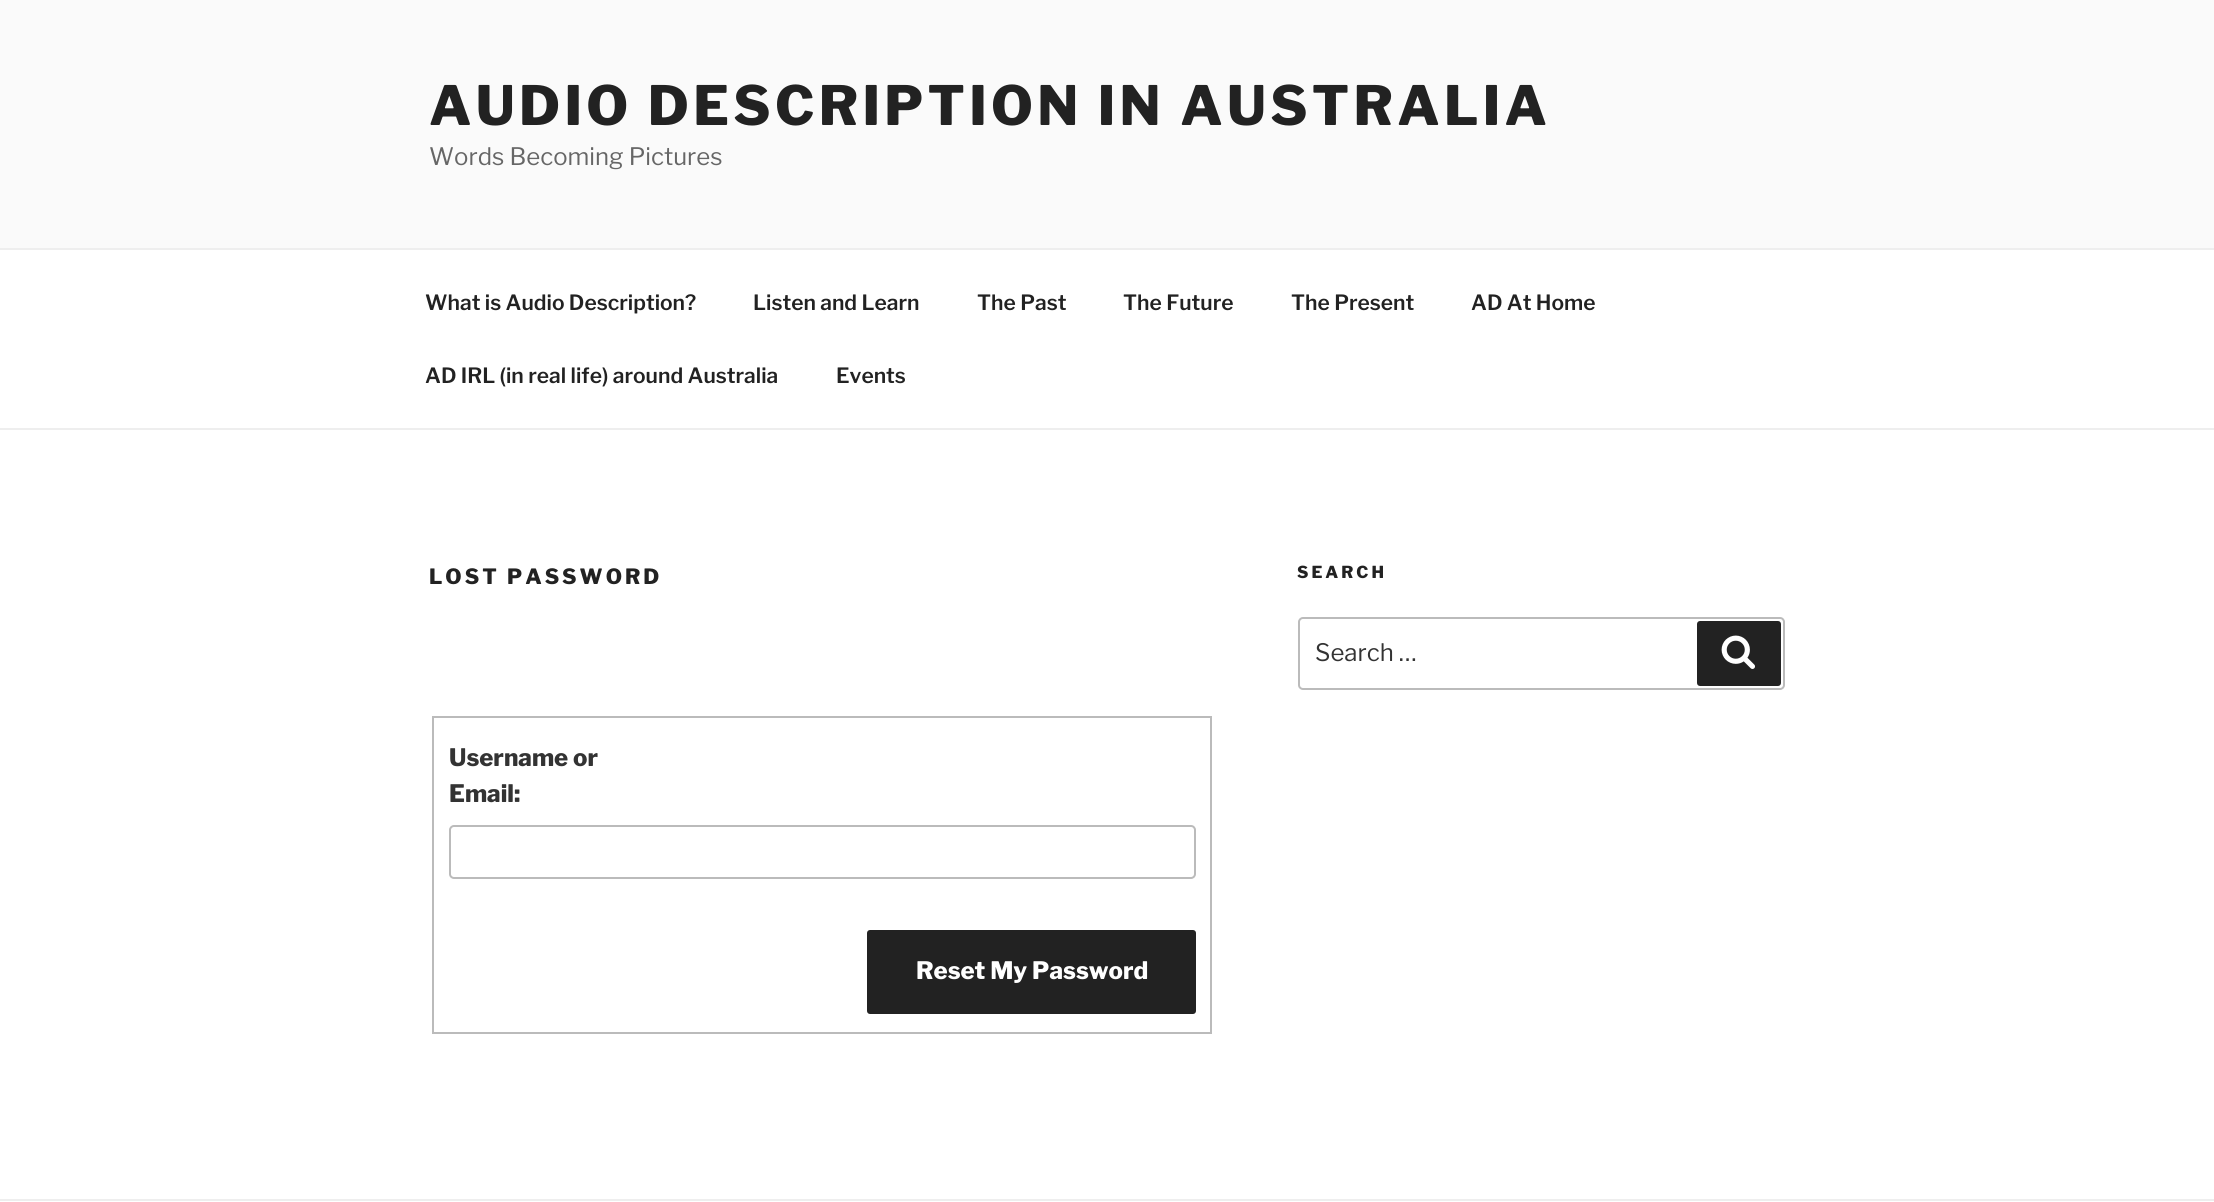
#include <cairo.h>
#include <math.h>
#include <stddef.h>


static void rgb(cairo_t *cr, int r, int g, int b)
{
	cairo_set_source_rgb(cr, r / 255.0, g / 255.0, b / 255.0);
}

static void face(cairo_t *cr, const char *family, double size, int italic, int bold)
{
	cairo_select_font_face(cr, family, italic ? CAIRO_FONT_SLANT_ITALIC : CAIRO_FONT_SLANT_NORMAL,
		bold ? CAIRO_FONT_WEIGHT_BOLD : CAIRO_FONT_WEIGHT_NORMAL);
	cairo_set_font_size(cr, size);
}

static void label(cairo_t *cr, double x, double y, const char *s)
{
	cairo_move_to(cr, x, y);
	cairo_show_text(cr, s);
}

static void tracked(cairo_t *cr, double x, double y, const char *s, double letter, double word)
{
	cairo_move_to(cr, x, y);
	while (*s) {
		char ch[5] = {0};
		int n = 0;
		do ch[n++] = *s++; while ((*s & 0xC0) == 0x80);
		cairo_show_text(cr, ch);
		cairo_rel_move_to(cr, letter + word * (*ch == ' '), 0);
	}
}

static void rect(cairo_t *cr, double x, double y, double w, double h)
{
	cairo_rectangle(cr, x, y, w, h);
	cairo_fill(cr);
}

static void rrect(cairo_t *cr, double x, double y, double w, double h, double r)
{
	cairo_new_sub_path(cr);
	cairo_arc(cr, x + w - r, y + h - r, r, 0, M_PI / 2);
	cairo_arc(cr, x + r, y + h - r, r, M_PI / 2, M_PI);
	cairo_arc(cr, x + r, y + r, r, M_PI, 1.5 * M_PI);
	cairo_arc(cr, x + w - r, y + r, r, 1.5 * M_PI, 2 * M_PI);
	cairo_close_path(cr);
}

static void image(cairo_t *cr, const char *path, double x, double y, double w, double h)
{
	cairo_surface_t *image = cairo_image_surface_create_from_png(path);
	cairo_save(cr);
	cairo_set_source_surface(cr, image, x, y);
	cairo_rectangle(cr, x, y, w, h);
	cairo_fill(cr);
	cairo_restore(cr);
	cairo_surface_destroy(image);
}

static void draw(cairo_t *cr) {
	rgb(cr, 255, 255, 255);
	cairo_paint(cr);
	rgb(cr, 250, 250, 250);
	rect(cr, 0, 0, 2214, 248);
	face(cr, "Libre Franklin Thin", 54, 0, 0);
	rgb(cr, 34, 34, 34);
	tracked(cr, 429, 125, "AUDIO DESCRIPTION IN AUSTRALIA", 4.3, 0);
	face(cr, "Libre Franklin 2 Thin", 24, 0, 0);
	rgb(cr, 102, 102, 102);
	label(cr, 429, 165, "Words Becoming Pictures");
	rgb(cr, 238, 238, 238);
	rect(cr, 0, 248, 2214, 2);
	rect(cr, 0, 428, 2214, 2);
	face(cr, "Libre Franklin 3 Thin", 21, 0, 0);
	rgb(cr, 34, 34, 34);
	label(cr, 425, 310, "What is Audio Description?");
	label(cr, 753, 310, "Listen and Learn");
	label(cr, 977, 310, "The Past");
	label(cr, 1123, 310, "The Future");
	label(cr, 1291, 310, "The Present");
	label(cr, 1471, 310, "AD At Home");
	label(cr, 425, 383, "AD IRL (in real life) around Australia");
	label(cr, 836, 383, "Events");
	face(cr, "Libre Franklin Thin", 21, 0, 0);
	tracked(cr, 429, 584, "LOST PASSWORD", 3, 0);
	cairo_rectangle(cr, 433, 717, 778, 316);
	rgb(cr, 187, 187, 187);
	cairo_stroke(cr);
	face(cr, "Libre Franklin Thin", 24, 0, 0);
	rgb(cr, 51, 51, 51);
	label(cr, 449, 766, "Username or");
	label(cr, 449, 802, "Email:");
	rrect(cr, 450, 826, 745, 52, 4);
	rgb(cr, 187, 187, 187);
	cairo_stroke(cr);
	rgb(cr, 34, 34, 34);
	rrect(cr, 867, 930, 329, 84, 3);
	cairo_fill(cr);
	rgb(cr, 255, 255, 255);
	label(cr, 916, 979, "Reset My Password");
	face(cr, "Libre Franklin Thin", 16.5, 0, 0);
	rgb(cr, 34, 34, 34);
	tracked(cr, 1297, 578, "SEARCH", 3, 0);
	rrect(cr, 1299, 618, 485, 71, 4);
	rgb(cr, 187, 187, 187);
	cairo_stroke(cr);
	face(cr, "Libre Franklin 2 Thin", 24, 0, 0);
	rgb(cr, 51, 51, 51);
	label(cr, 1315, 661, "Search …");
	rgb(cr, 34, 34, 34);
	rrect(cr, 1697, 621, 84, 65, 3);
	cairo_fill(cr);
	image(cr, "image0.png", 1721, 635, 34, 34);
	rgb(cr, 238, 238, 238);
	rect(cr, 0, 1199, 2214, 2);
}

int main(void) {
	cairo_surface_t *surface = cairo_image_surface_create(CAIRO_FORMAT_RGB24, 2214, 1202);
	cairo_t *cr = cairo_create(surface);
	cairo_font_options_t *options = cairo_font_options_create();
	cairo_font_options_set_hint_metrics(options, CAIRO_HINT_METRICS_OFF);
	cairo_font_options_set_hint_style(options, CAIRO_HINT_STYLE_NONE);
	cairo_set_font_options(cr, options);
	cairo_set_miter_limit(cr, 4);
	draw(cr);
	cairo_surface_write_to_png(surface, "render.png");
	cairo_font_options_destroy(options);
	cairo_destroy(cr);
	cairo_surface_destroy(surface);
	return 0;
}
